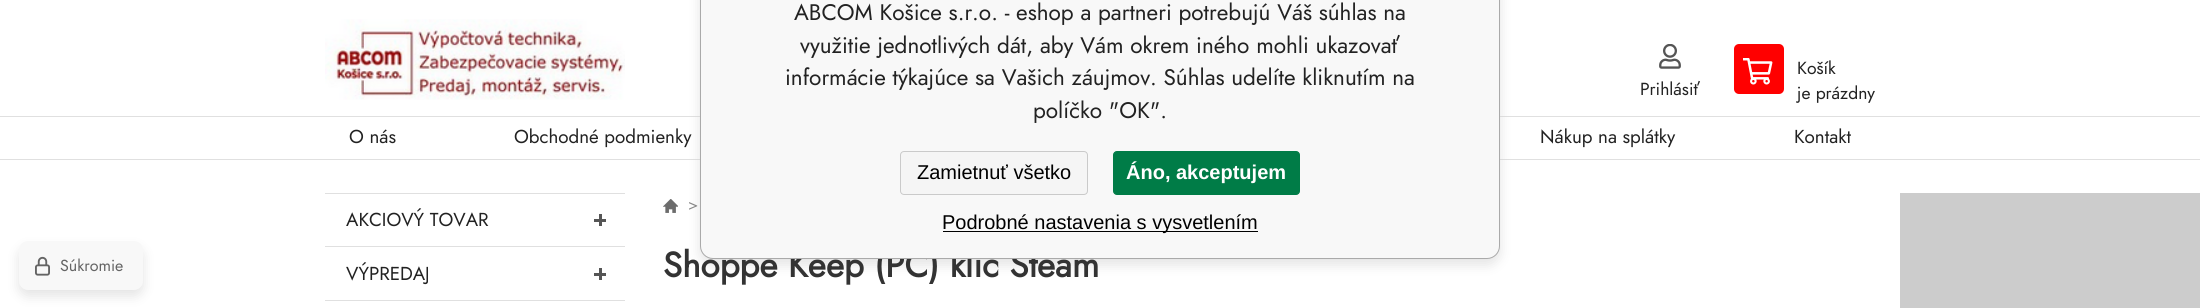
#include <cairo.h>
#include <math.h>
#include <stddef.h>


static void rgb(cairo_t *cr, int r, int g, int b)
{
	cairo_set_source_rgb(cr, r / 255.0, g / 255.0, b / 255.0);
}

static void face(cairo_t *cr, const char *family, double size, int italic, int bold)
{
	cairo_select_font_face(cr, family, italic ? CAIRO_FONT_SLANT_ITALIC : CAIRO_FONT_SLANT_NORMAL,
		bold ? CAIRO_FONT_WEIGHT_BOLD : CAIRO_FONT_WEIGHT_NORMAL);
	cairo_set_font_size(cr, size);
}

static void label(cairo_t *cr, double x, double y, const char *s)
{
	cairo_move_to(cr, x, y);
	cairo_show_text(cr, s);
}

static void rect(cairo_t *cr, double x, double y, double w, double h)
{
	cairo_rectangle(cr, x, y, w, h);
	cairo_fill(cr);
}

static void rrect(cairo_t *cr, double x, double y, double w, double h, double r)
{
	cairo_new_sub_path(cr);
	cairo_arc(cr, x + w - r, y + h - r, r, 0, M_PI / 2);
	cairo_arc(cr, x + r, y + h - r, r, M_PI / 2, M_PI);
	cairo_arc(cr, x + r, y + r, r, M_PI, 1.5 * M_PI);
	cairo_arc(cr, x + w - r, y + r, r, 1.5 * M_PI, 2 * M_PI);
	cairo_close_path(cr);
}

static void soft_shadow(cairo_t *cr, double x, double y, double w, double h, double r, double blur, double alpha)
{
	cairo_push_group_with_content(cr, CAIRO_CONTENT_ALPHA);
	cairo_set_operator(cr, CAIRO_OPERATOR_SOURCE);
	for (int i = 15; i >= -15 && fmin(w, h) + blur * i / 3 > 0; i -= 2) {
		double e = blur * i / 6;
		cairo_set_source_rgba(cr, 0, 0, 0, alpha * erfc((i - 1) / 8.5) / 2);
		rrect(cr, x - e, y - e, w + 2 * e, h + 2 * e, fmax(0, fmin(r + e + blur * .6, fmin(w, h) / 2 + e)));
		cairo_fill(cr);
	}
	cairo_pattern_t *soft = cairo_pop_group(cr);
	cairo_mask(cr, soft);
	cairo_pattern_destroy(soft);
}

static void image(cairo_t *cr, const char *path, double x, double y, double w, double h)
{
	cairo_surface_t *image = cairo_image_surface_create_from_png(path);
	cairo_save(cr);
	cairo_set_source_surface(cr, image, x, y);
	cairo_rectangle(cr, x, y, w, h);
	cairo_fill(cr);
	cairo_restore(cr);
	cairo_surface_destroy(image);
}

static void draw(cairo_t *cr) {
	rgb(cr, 255, 255, 255);
	cairo_paint(cr);
	rgb(cr, 224, 224, 224);
	rect(cr, 0, 116, 2200, 1);
	rect(cr, 0, 159, 2200, 1);
	rgb(cr, 200, 200, 200);
	soft_shadow(cr, 700, -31, 800, 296, 13, 6, 0.5);
	face(cr, "Jost", 35, 0, 1);
	rgb(cr, 51, 51, 51);
	label(cr, 663, 277, "Shoppe Keep (PC) klíč Steam");
	rgb(cr, 248, 248, 248);
	rrect(cr, 700.5, -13.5, 799, 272, 12.5);
	cairo_fill_preserve(cr);
	rgb(cr, 170, 170, 170);
	cairo_set_line_width(cr, 1);
	cairo_stroke(cr);
	face(cr, "Jost", 22.5, 0, 0);
	rgb(cr, 34, 34, 34);
	label(cr, 794, 20, "ABCOM Košice s.r.o. - eshop a partneri potrebujú Váš súhlas na");
	label(cr, 800, 53, "využitie jednotlivých dát, aby Vám okrem iného mohli ukazovať");
	label(cr, 785, 85, "informácie týkajúce sa Vašich záujmov. Súhlas udelíte kliknutím na");
	label(cr, 1033, 118, "políčko \"OK\".");
	rgb(cr, 245, 245, 245);
	rrect(cr, 900.5, 151.5, 187, 43, 3.5);
	cairo_fill_preserve(cr);
	rgb(cr, 202, 202, 202);
	cairo_stroke(cr);
	face(cr, "Liberation Sans", 20, 0, 0);
	rgb(cr, 0, 0, 0);
	label(cr, 917, 179, "Zamietnuť všetko");
	rgb(cr, 0, 124, 71);
	rrect(cr, 1113.5, 151.5, 186, 43, 3.5);
	cairo_fill_preserve(cr);
	cairo_stroke(cr);
	face(cr, "Liberation Sans", 20, 0, 1);
	rgb(cr, 255, 255, 255);
	label(cr, 1126, 179, "Áno, akceptujem");
	rgb(cr, 0, 0, 0);
	rect(cr, 943, 231, 315, 1);
	face(cr, "Liberation Sans", 20, 0, 0);
	label(cr, 942, 229, "Podrobné nastavenia s vysvetlením");
	rgb(cr, 200, 200, 200);
	soft_shadow(cr, 19, 248, 124, 48, 9, 6, 0.5);
	rgb(cr, 248, 248, 248);
	rrect(cr, 19, 241, 124, 49, 9);
	cairo_fill(cr);
	image(cr, "image0.png", 35, 256, 15, 20);
	face(cr, "Jost", 16, 0, 0);
	rgb(cr, 100, 100, 100);
	label(cr, 60, 271, "Súkromie");
	image(cr, "image1.png", 325, 19, 300, 81);
	image(cr, "image2.png", 1659, 44, 22, 25);
	face(cr, "Jost", 17.5, 0, 0);
	rgb(cr, 34, 34, 34);
	label(cr, 1640, 95, "Prihlásiť");
	rgb(cr, 255, 0, 0);
	rrect(cr, 1734, 44, 50, 50, 5);
	cairo_fill(cr);
	image(cr, "image3.png", 1743, 58, 30, 27);
	rgb(cr, 34, 34, 34);
	label(cr, 1797, 74, "Košík");
	label(cr, 1797, 99, "je prázdny");
	face(cr, "Jost", 18.75, 0, 0);
	label(cr, 349, 143, "O nás");
	label(cr, 514, 143, "Obchodné podmienky");
	label(cr, 1540, 143, "Nákup na splátky");
	label(cr, 1794, 143, "Kontakt");
	rgb(cr, 224, 224, 224);
	rect(cr, 325, 193, 300, 1);
	rect(cr, 325, 246, 300, 1);
	rgb(cr, 34, 34, 34);
	label(cr, 346, 226, "AKCIOVÝ TOVAR");
	rgb(cr, 85, 85, 85);
	rect(cr, 599, 214, 3, 12);
	rect(cr, 594, 219, 12, 3);
	rgb(cr, 224, 224, 224);
	rect(cr, 325, 300, 300, 1);
	rgb(cr, 34, 34, 34);
	label(cr, 346, 280, "VÝPREDAJ");
	rgb(cr, 85, 85, 85);
	rect(cr, 599, 268, 3, 12);
	rect(cr, 594, 273, 12, 3);
	image(cr, "image4.png", 663, 199, 15, 14);
	face(cr, "Jost", 16, 0, 0);
	rgb(cr, 136, 136, 136);
	label(cr, 688, 210, ">");
	rgb(cr, 204, 204, 204);
	rect(cr, 1900, 193, 300, 115);
}

int main(void) {
	cairo_surface_t *surface = cairo_image_surface_create(CAIRO_FORMAT_RGB24, 2200, 308);
	cairo_t *cr = cairo_create(surface);
	cairo_font_options_t *options = cairo_font_options_create();
	cairo_font_options_set_hint_metrics(options, CAIRO_HINT_METRICS_OFF);
	cairo_font_options_set_hint_style(options, CAIRO_HINT_STYLE_NONE);
	cairo_set_font_options(cr, options);
	cairo_set_miter_limit(cr, 4);
	draw(cr);
	cairo_surface_write_to_png(surface, "render.png");
	cairo_font_options_destroy(options);
	cairo_destroy(cr);
	cairo_surface_destroy(surface);
	return 0;
}
